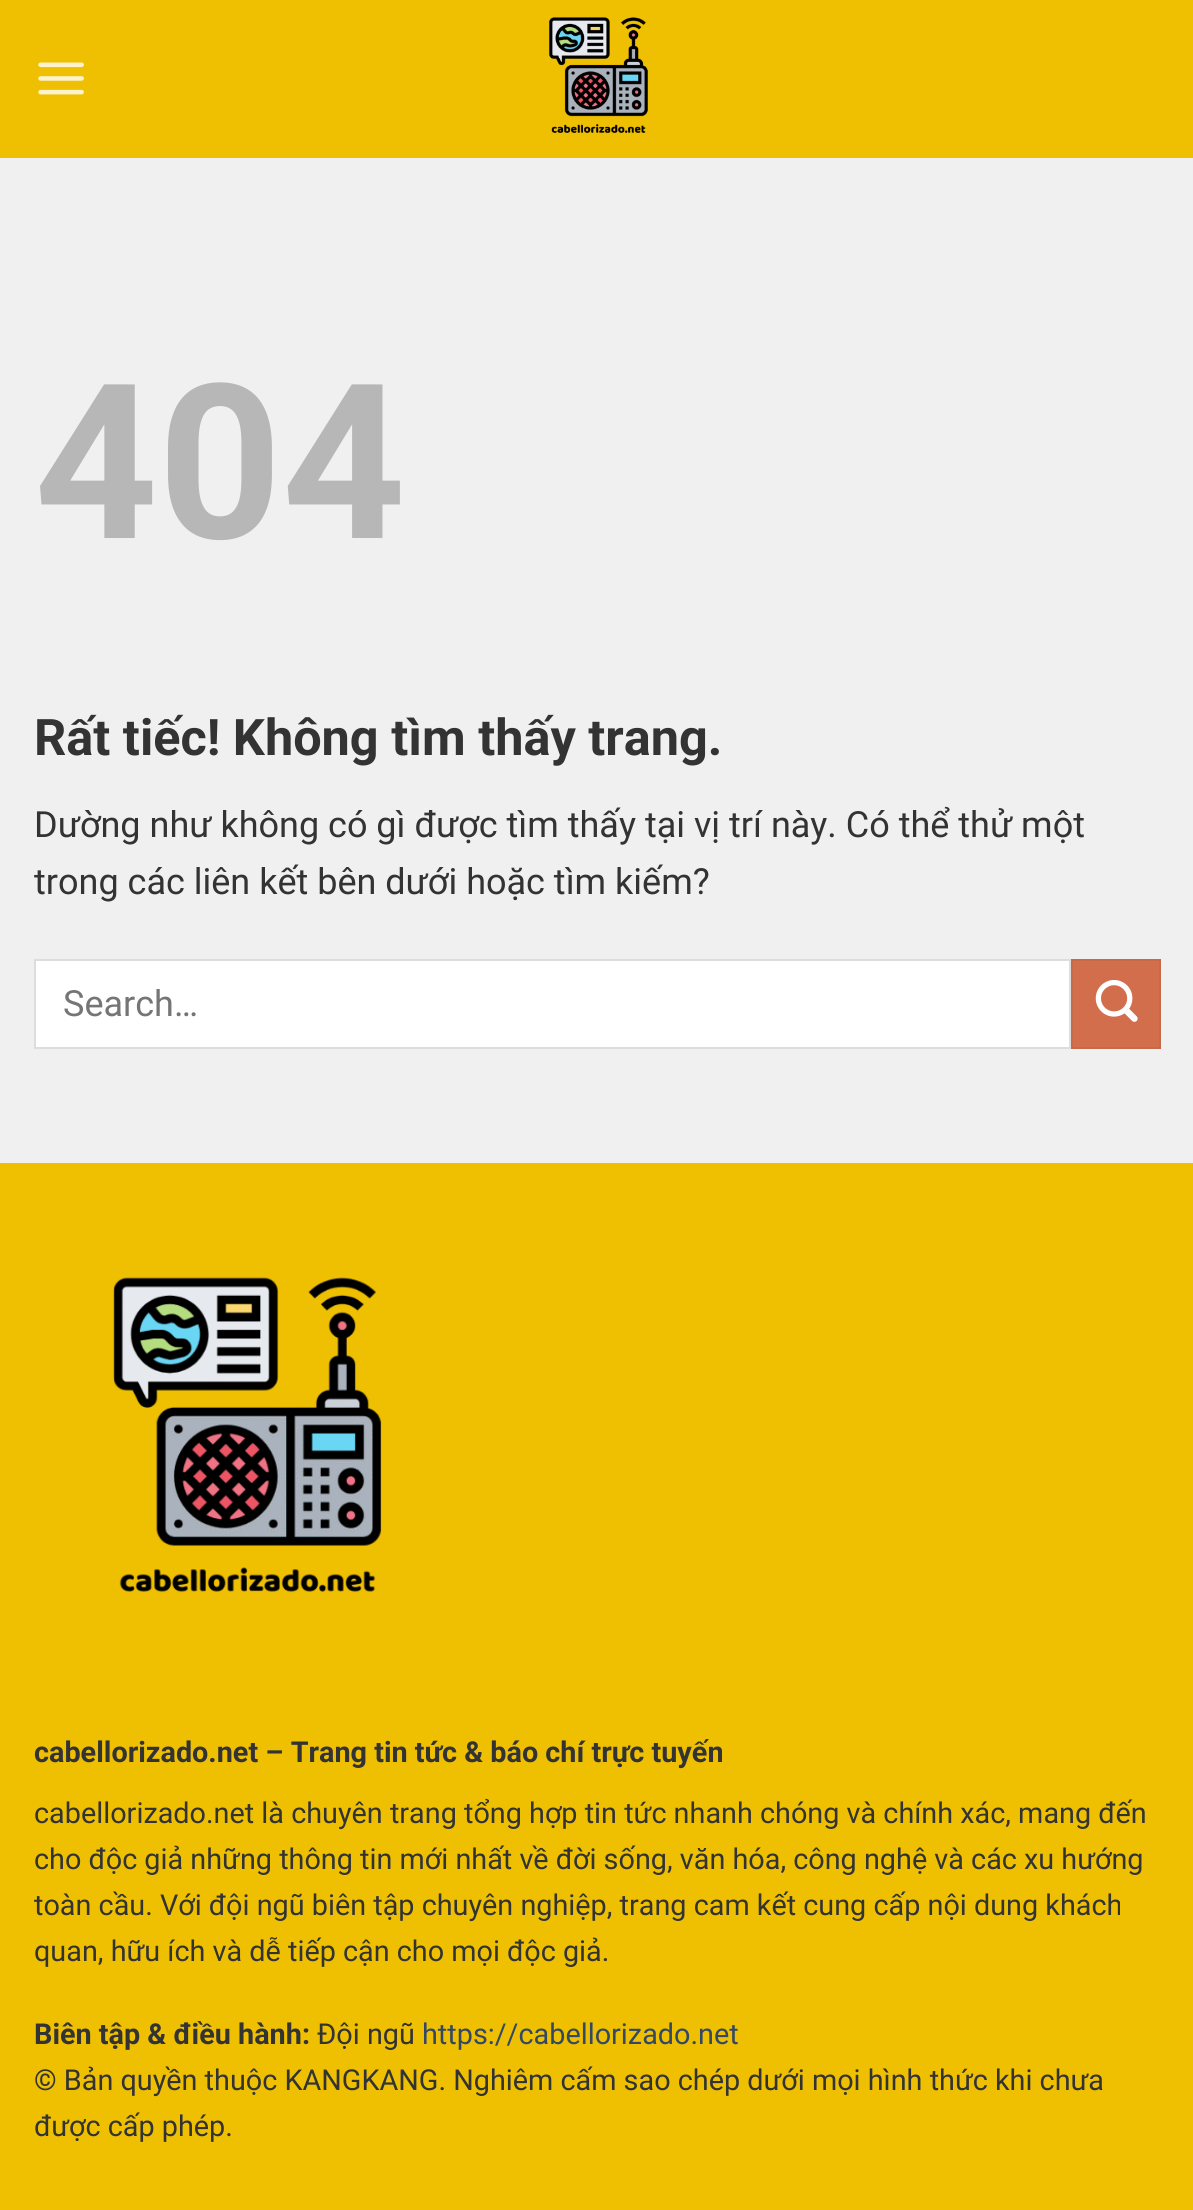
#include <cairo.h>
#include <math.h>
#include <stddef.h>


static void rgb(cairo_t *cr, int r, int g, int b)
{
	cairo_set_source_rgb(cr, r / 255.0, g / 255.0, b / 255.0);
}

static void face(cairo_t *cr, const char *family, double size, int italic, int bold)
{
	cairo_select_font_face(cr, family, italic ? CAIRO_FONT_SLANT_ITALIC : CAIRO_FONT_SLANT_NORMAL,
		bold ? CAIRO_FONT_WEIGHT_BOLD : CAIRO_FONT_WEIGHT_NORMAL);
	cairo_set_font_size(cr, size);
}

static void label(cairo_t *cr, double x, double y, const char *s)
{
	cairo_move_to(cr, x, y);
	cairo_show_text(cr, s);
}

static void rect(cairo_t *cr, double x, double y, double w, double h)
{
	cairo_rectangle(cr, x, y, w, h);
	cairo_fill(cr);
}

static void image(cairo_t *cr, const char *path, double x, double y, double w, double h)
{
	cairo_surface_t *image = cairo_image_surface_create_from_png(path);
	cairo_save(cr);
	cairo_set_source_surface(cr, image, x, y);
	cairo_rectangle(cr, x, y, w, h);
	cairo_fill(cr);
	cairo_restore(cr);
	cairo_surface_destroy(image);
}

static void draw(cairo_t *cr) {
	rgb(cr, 240, 240, 240);
	cairo_paint(cr);
	rgb(cr, 239, 192, 2);
	rect(cr, 0, 0, 1193, 158);
	image(cr, "image0.png", 38, 62, 46, 33);
	image(cr, "image1.png", 549, 17, 99, 116);
	face(cr, "Roboto", 216, 0, 1);
	rgb(cr, 183, 183, 183);
	label(cr, 34, 538, "404");
	face(cr, "Roboto", 50.4, 0, 1);
	rgb(cr, 51, 51, 51);
	label(cr, 34, 755, "Rất tiếc! Không tìm thấy trang.");
	face(cr, "Roboto", 36, 0, 0);
	label(cr, 34, 837, "Dường như không có gì được tìm thấy tại vị trí này. Có thể thử một");
	label(cr, 34, 894, "trong các liên kết bên dưới hoặc tìm kiếm?");
	rgb(cr, 255, 255, 255);
	cairo_rectangle(cr, 35, 960, 1035, 88);
	cairo_fill_preserve(cr);
	rgb(cr, 221, 221, 221);
	cairo_stroke(cr);
	rgb(cr, 117, 117, 117);
	label(cr, 63, 1016, "Search…");
	rgb(cr, 210, 110, 75);
	cairo_rectangle(cr, 1072, 960, 88, 88);
	cairo_fill_preserve(cr);
	rgb(cr, 200, 105, 71);
	cairo_stroke(cr);
	image(cr, "image2.png", 1095, 980, 43, 42);
	rgb(cr, 239, 192, 2);
	rect(cr, 0, 1163, 1193, 1047);
	image(cr, "image3.png", 113, 1277, 269, 316);
	face(cr, "Roboto", 28.8, 0, 1);
	rgb(cr, 51, 51, 51);
	label(cr, 34, 1762, "cabellorizado.net – Trang tin tức & báo chí trực tuyến");
	face(cr, "Roboto", 28.8, 0, 0);
	label(cr, 34, 1823, "cabellorizado.net là chuyên trang tổng hợp tin tức nhanh chóng và chính xác, mang đến");
	label(cr, 34, 1869, "cho độc giả những thông tin mới nhất về đời sống, văn hóa, công nghệ và các xu hướng");
	label(cr, 34, 1915, "toàn cầu. Với đội ngũ biên tập chuyên nghiệp, trang cam kết cung cấp nội dung khách");
	label(cr, 34, 1961, "quan, hữu ích và dễ tiếp cận cho mọi độc giả.");
	face(cr, "Roboto", 28.8, 0, 1);
	label(cr, 34, 2044, "Biên tập & điều hành:");
	face(cr, "Roboto", 28.8, 0, 0);
	label(cr, 317, 2044, "Đội ngũ");
	rgb(cr, 51, 72, 98);
	label(cr, 422, 2044, "https://cabellorizado.net");
	rgb(cr, 51, 51, 51);
	label(cr, 34, 2090, "© Bản quyền thuộc KANGKANG. Nghiêm cấm sao chép dưới mọi hình thức khi chưa");
	label(cr, 34, 2136, "được cấp phép.");
}

int main(void) {
	cairo_surface_t *surface = cairo_image_surface_create(CAIRO_FORMAT_RGB24, 1193, 2210);
	cairo_t *cr = cairo_create(surface);
	cairo_font_options_t *options = cairo_font_options_create();
	cairo_font_options_set_hint_metrics(options, CAIRO_HINT_METRICS_OFF);
	cairo_font_options_set_hint_style(options, CAIRO_HINT_STYLE_NONE);
	cairo_set_font_options(cr, options);
	cairo_set_miter_limit(cr, 4);
	draw(cr);
	cairo_surface_write_to_png(surface, "render.png");
	cairo_font_options_destroy(options);
	cairo_destroy(cr);
	cairo_surface_destroy(surface);
	return 0;
}
